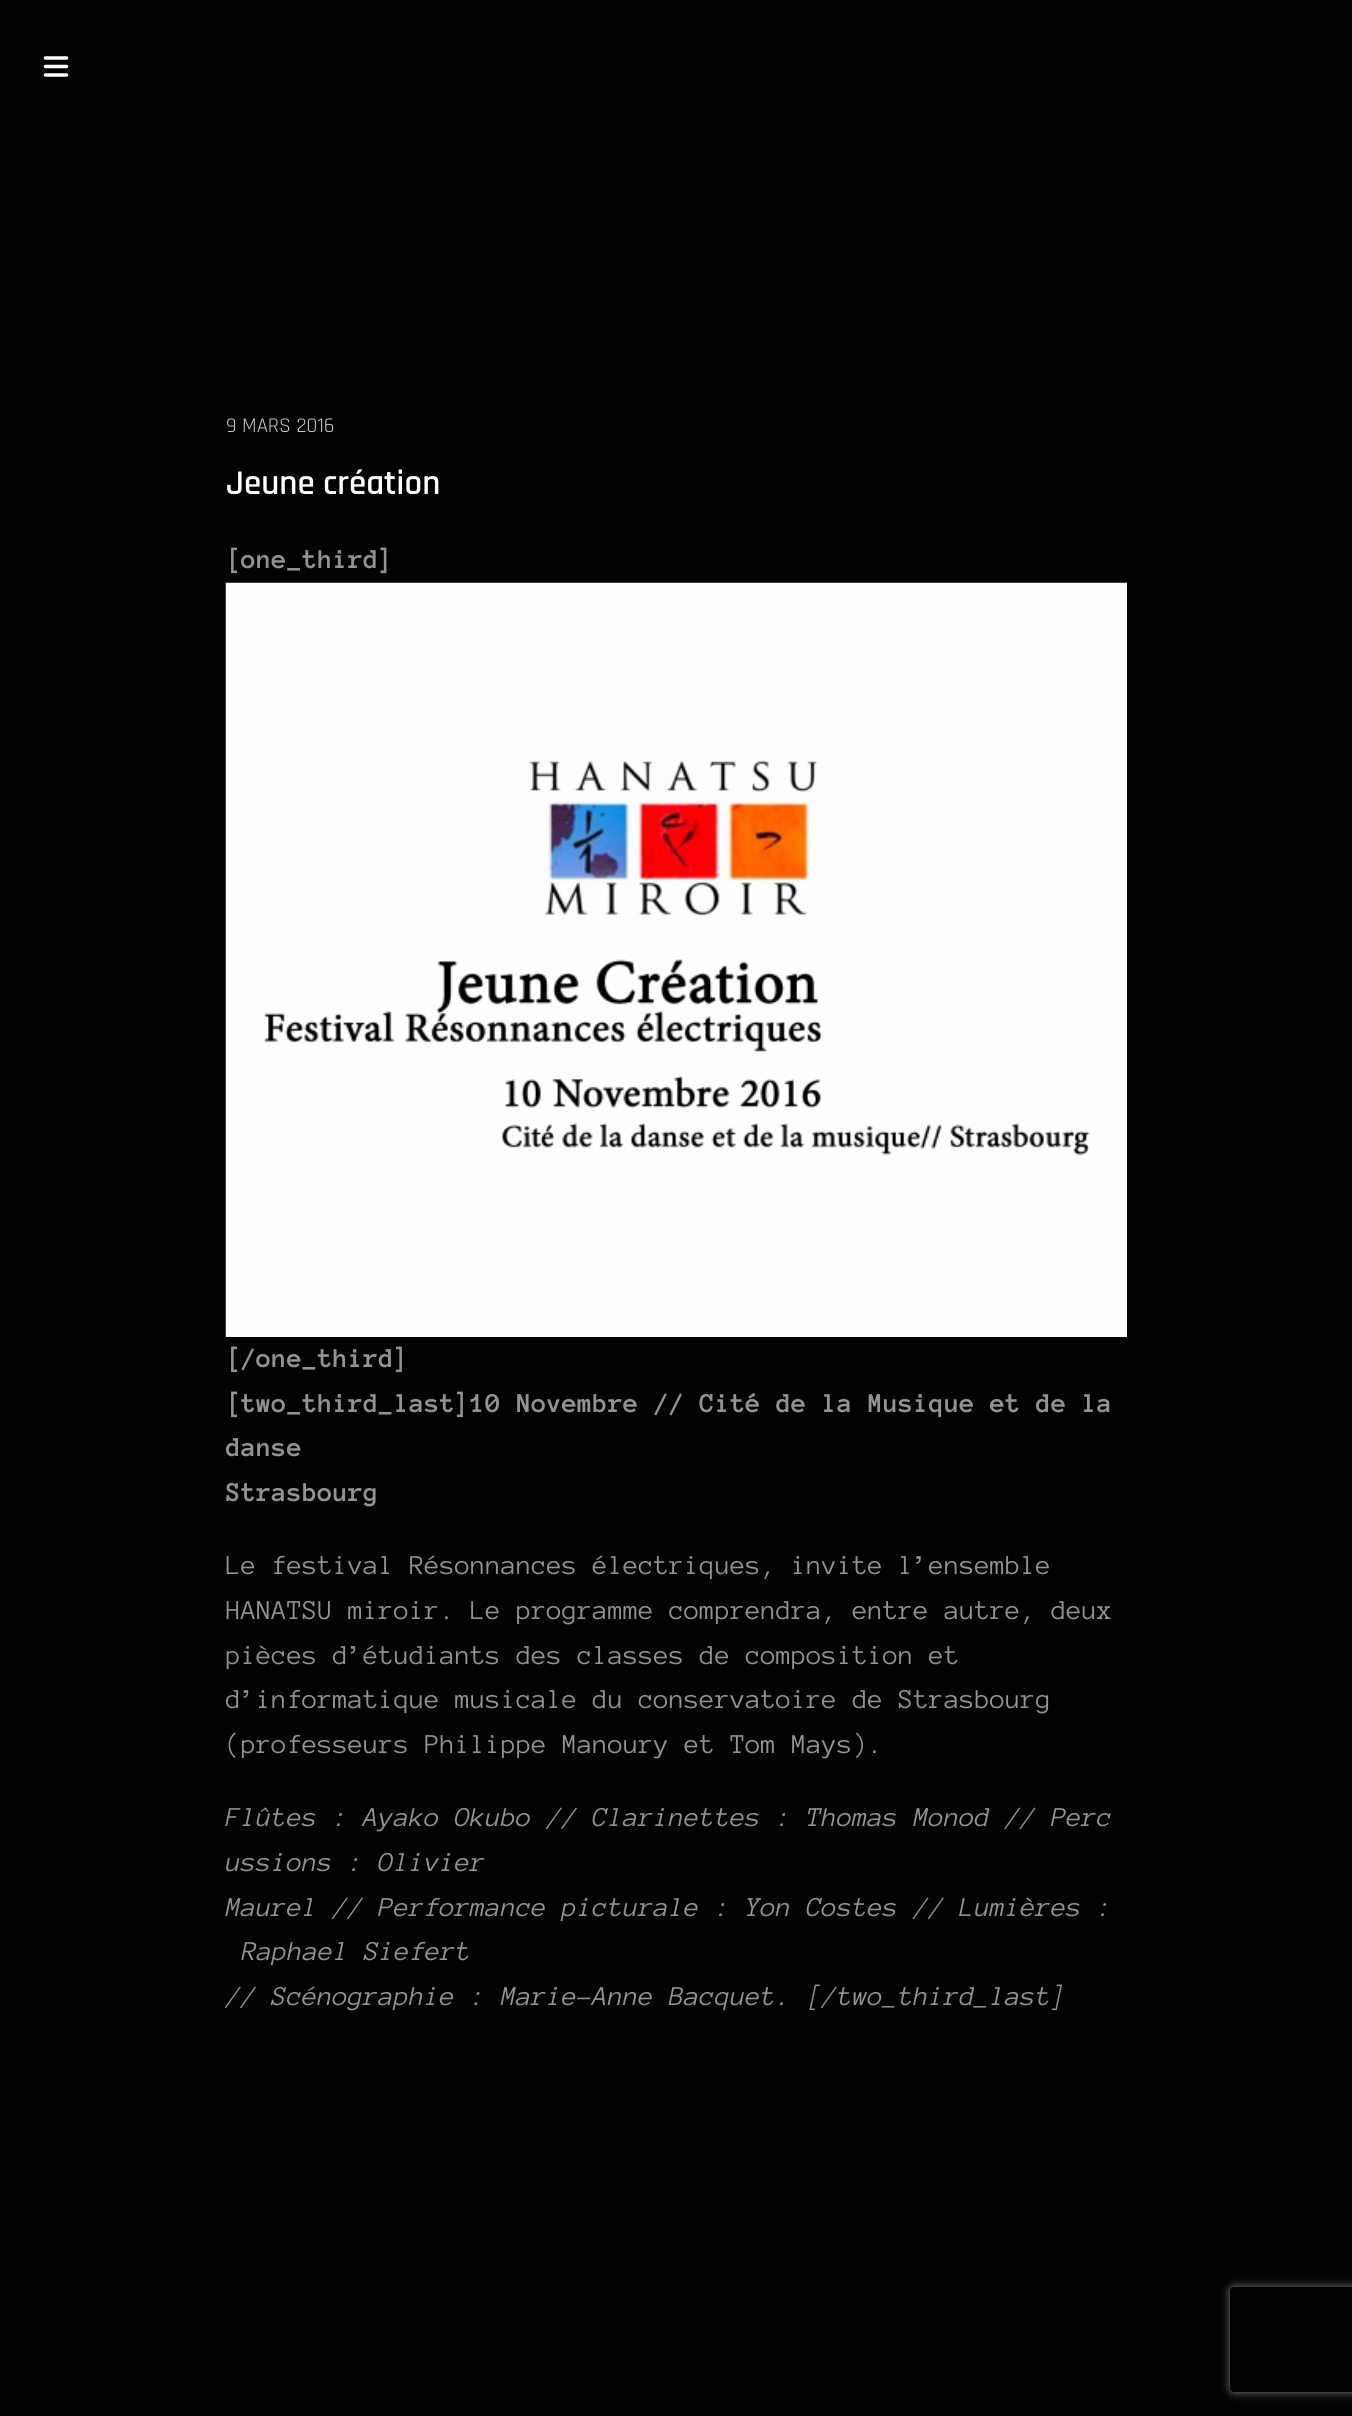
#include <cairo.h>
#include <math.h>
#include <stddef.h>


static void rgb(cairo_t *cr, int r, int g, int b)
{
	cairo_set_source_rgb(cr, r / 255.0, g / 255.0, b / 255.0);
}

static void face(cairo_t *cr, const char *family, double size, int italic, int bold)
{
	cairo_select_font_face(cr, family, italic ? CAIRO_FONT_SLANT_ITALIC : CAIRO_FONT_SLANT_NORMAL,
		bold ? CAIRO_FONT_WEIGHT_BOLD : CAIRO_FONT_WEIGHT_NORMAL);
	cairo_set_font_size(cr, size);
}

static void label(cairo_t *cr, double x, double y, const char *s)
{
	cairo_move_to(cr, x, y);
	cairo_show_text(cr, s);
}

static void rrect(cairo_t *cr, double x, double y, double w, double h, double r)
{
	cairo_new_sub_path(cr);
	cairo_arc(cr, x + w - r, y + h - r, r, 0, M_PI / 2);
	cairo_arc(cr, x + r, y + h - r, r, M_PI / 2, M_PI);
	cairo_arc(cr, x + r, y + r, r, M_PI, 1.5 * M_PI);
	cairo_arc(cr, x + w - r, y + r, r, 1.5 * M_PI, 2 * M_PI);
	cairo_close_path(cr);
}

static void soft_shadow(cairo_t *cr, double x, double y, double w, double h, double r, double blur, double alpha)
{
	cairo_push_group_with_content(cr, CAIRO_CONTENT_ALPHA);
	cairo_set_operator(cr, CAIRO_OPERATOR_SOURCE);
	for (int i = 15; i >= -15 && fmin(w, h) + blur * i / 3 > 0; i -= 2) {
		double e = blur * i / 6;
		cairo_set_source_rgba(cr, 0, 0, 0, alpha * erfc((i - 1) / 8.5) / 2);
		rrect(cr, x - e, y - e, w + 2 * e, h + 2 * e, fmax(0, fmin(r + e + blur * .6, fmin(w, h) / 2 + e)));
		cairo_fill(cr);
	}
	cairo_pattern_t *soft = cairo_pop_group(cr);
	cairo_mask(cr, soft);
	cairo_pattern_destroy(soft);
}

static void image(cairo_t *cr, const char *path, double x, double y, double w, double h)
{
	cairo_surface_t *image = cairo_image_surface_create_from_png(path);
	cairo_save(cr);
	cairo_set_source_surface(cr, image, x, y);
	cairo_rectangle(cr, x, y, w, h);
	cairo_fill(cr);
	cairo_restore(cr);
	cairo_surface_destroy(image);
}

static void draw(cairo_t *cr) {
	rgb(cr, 2, 2, 2);
	cairo_paint(cr);
	cairo_new_path(cr);
	cairo_move_to(cr, 45.5, 58);
	cairo_line_to(cr, 66.5, 58);
	cairo_move_to(cr, 45.5, 66.5);
	cairo_line_to(cr, 66.5, 66.5);
	cairo_move_to(cr, 45.5, 75);
	cairo_line_to(cr, 66.5, 75);
	rgb(cr, 255, 255, 255);
	cairo_set_line_width(cr, 3.5);
	cairo_set_line_cap(cr, CAIRO_LINE_CAP_ROUND);
	cairo_set_line_join(cr, CAIRO_LINE_JOIN_ROUND);
	cairo_stroke(cr);
	face(cr, "Rajdhani", 21, 0, 0);
	rgb(cr, 204, 204, 204);
	label(cr, 226, 432, "9 MARS 2016");
	face(cr, "Rajdhani SemiBold", 35, 0, 0);
	rgb(cr, 255, 255, 255);
	label(cr, 226, 494, "Jeune création");
	face(cr, "Anonymous Pro", 28, 0, 1);
	rgb(cr, 147, 147, 147);
	label(cr, 226, 568, "[one_third]");
	image(cr, "image0.png", 225, 582, 902, 755);
	label(cr, 226, 1367, "[/one_third]");
	label(cr, 226, 1412, "[two_third_last]10 Novembre // Cité de la Musique et de la");
	label(cr, 226, 1456, "danse");
	label(cr, 226, 1501, "Strasbourg");
	face(cr, "Anonymous Pro", 28, 0, 0);
	label(cr, 226, 1574, "Le festival Résonnances électriques, invite l’ensemble");
	label(cr, 226, 1619, "HANATSU miroir. Le programme comprendra, entre autre, deux");
	label(cr, 226, 1664, "pièces d’étudiants des classes de composition et");
	label(cr, 226, 1708, "d’informatique musicale du conservatoire de Strasbourg");
	label(cr, 226, 1753, "(professeurs Philippe Manoury et Tom Mays).");
	face(cr, "Anonymous Pro", 28, 1, 0);
	label(cr, 226, 1826, "Flûtes : Ayako Okubo // Clarinettes : Thomas Monod // Perc");
	label(cr, 226, 1871, "ussions : Olivier");
	label(cr, 226, 1916, "Maurel // Performance picturale : Yon Costes // Lumières :");
	label(cr, 242, 1960, "Raphael Siefert");
	label(cr, 226, 2005, "// Scénographie : Marie-Anne Bacquet. [/two_third_last]");
	cairo_save(cr);
	cairo_set_fill_rule(cr, CAIRO_FILL_RULE_EVEN_ODD);
	cairo_new_path(cr);
	cairo_move_to(cr, 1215, 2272);
	cairo_line_to(cr, 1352, 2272);
	cairo_line_to(cr, 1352, 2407);
	cairo_line_to(cr, 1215, 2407);
	cairo_close_path(cr);
	cairo_move_to(cr, 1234, 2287);
	cairo_line_to(cr, 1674, 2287);
	cairo_curve_to(cr, 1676, 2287, 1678, 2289, 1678, 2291);
	cairo_line_to(cr, 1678, 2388);
	cairo_curve_to(cr, 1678, 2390, 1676, 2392, 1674, 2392);
	cairo_line_to(cr, 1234, 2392);
	cairo_curve_to(cr, 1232, 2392, 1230, 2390, 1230, 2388);
	cairo_line_to(cr, 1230, 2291);
	cairo_curve_to(cr, 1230, 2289, 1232, 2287, 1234, 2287);
	cairo_close_path(cr);
	cairo_clip(cr);
	rgb(cr, 128, 128, 128);
	soft_shadow(cr, 1230, 2287, 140, 105, 4, 4.5, 1);
	cairo_restore(cr);
}

int main(void) {
	cairo_surface_t *surface = cairo_image_surface_create(CAIRO_FORMAT_RGB24, 1352, 2416);
	cairo_t *cr = cairo_create(surface);
	cairo_font_options_t *options = cairo_font_options_create();
	cairo_font_options_set_hint_metrics(options, CAIRO_HINT_METRICS_OFF);
	cairo_font_options_set_hint_style(options, CAIRO_HINT_STYLE_NONE);
	cairo_set_font_options(cr, options);
	cairo_set_miter_limit(cr, 4);
	draw(cr);
	cairo_surface_write_to_png(surface, "render.png");
	cairo_font_options_destroy(options);
	cairo_destroy(cr);
	cairo_surface_destroy(surface);
	return 0;
}
